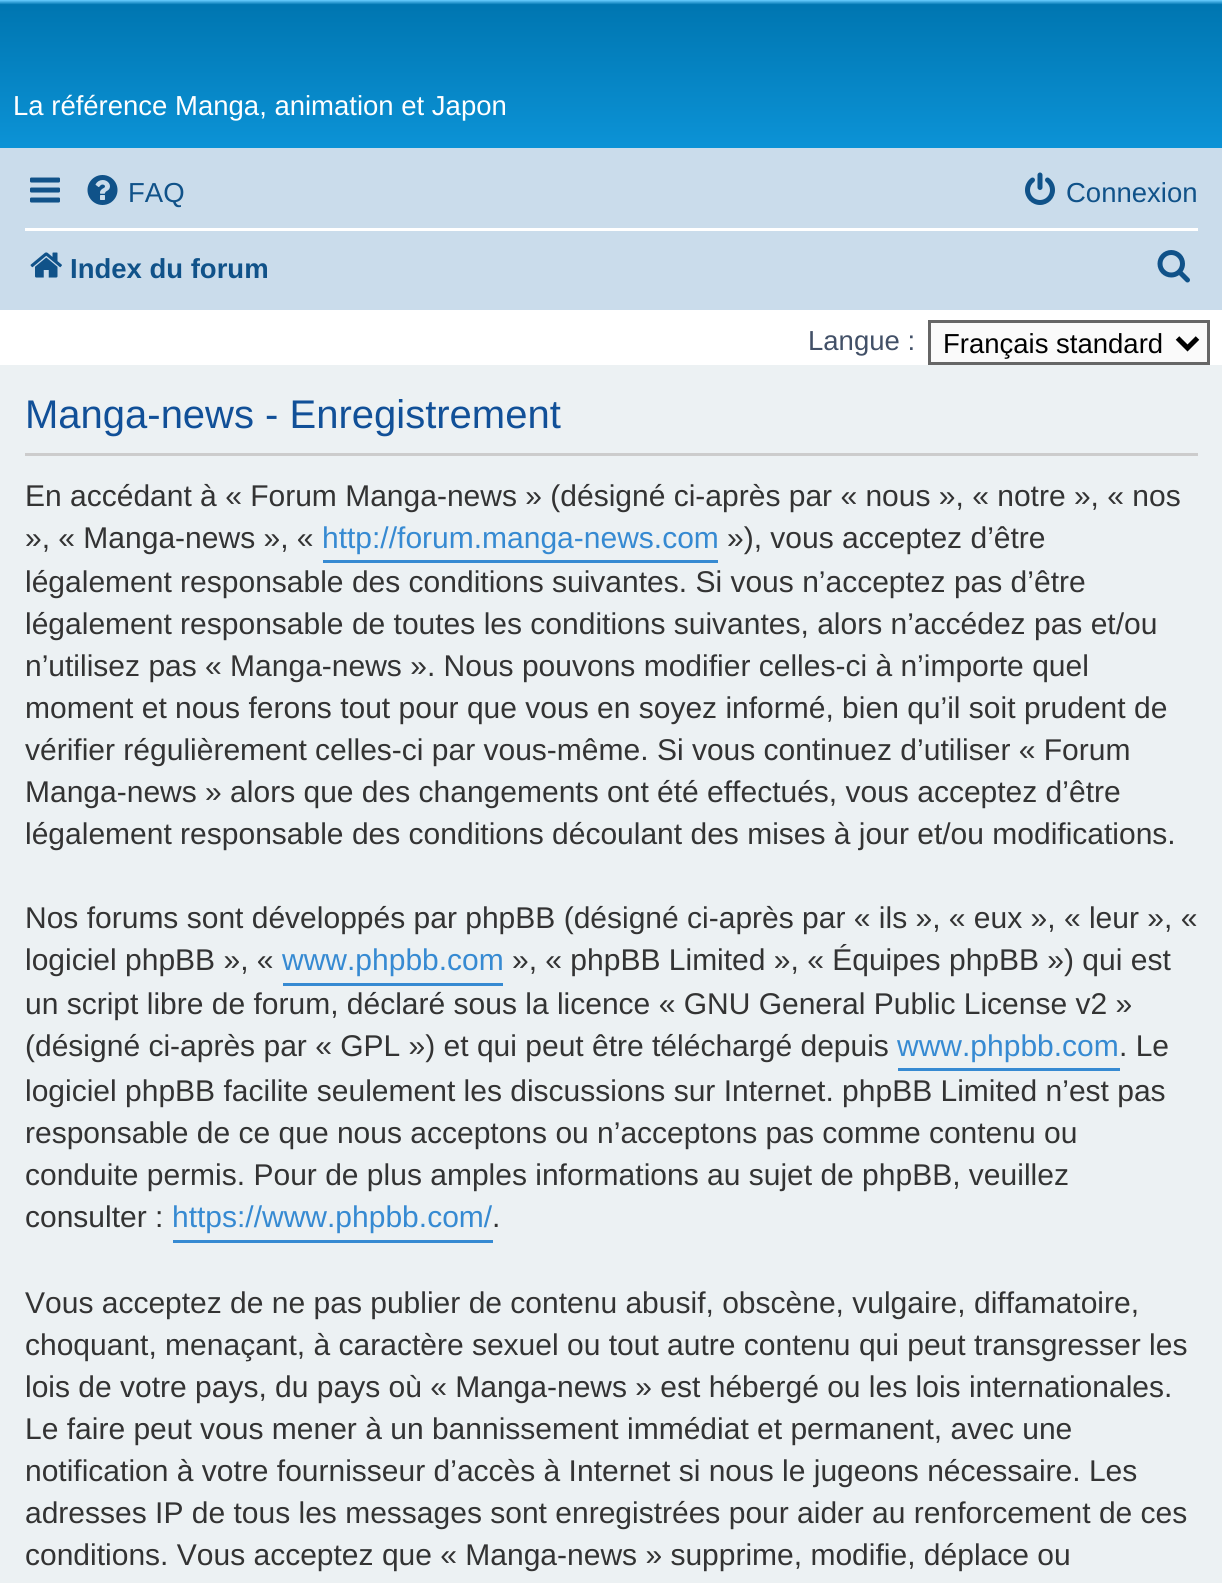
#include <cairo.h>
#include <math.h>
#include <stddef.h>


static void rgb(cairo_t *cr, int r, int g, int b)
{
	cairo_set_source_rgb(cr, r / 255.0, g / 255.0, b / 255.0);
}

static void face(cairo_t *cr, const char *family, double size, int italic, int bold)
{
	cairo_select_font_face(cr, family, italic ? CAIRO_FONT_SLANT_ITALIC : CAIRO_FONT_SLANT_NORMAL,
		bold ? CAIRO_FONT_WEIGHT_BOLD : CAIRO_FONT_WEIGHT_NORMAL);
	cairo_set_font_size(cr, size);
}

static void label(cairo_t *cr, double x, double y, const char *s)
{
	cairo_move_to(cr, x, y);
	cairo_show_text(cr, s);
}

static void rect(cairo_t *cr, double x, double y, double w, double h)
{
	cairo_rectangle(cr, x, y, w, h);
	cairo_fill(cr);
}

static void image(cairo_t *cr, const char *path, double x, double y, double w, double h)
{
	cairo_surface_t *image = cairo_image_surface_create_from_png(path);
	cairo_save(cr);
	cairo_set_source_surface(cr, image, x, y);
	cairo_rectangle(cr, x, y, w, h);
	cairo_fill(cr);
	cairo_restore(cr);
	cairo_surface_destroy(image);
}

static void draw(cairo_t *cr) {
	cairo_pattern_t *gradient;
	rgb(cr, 255, 255, 255);
	cairo_paint(cr);
	gradient = cairo_pattern_create_linear(611, 0, 611, 230);
	cairo_pattern_add_color_stop_rgba(gradient, 0, 0.416, 0.808, 1, 1);
	cairo_pattern_add_color_stop_rgba(gradient, 0.02, 0, 0.463, 0.694, 1);
	cairo_pattern_add_color_stop_rgba(gradient, 1, 0.071, 0.639, 0.922, 1);
	cairo_set_source(cr, gradient);
	cairo_pattern_destroy(gradient);
	rect(cr, 0, 0, 1222, 148);
	face(cr, "Liberation Sans", 27.5, 0, 0);
	rgb(cr, 255, 255, 255);
	label(cr, 13, 115, "La référence Manga, animation et Japon");
	rgb(cr, 202, 220, 235);
	rect(cr, 0, 148, 1222, 162);
	image(cr, "image0.png", 30, 177, 30, 26);
	image(cr, "image1.png", 87, 175, 31, 30);
	rgb(cr, 16, 82, 137);
	label(cr, 128, 202, "FAQ");
	image(cr, "image2.png", 1025, 172, 30, 33);
	label(cr, 1066, 202, "Connexion");
	rgb(cr, 255, 255, 255);
	rect(cr, 25, 228, 1173, 3);
	image(cr, "image3.png", 30, 252, 32, 26);
	face(cr, "Liberation Sans", 27.5, 0, 1);
	rgb(cr, 16, 82, 137);
	label(cr, 70, 278, "Index du forum");
	image(cr, "image4.png", 1157, 250, 33, 33);
	face(cr, "Liberation Sans", 27.5, 0, 0);
	rgb(cr, 66, 80, 103);
	label(cr, 808, 350, "Langue :");
	rgb(cr, 250, 250, 250);
	cairo_rectangle(cr, 929.5, 321.5, 279, 42);
	cairo_fill_preserve(cr);
	rgb(cr, 102, 102, 102);
	cairo_set_line_width(cr, 3);
	cairo_stroke(cr);
	cairo_new_path(cr);
	cairo_move_to(cr, 1177.5, 338);
	cairo_line_to(cr, 1187.5, 348);
	cairo_line_to(cr, 1197.5, 338);
	rgb(cr, 0, 0, 0);
	cairo_set_line_width(cr, 5);
	cairo_stroke(cr);
	label(cr, 943, 353, "Français standard");
	rgb(cr, 236, 241, 243);
	rect(cr, 0, 365, 1222, 1218);
	rgb(cr, 204, 204, 204);
	rect(cr, 25, 453, 1173, 3);
	face(cr, "Liberation Sans", 40, 0, 0);
	rgb(cr, 17, 80, 152);
	label(cr, 25, 428, "Manga-news - Enregistrement");
	face(cr, "Liberation Sans", 30, 0, 0);
	rgb(cr, 51, 51, 51);
	label(cr, 25, 506, "En accédant à « Forum Manga-news » (désigné ci-après par « nous », « notre », « nos");
	label(cr, 25, 548, "», « Manga-news », «");
	rgb(cr, 54, 138, 210);
	rect(cr, 323, 560, 395, 3);
	label(cr, 322, 548, "http://forum.manga-news.com");
	rgb(cr, 51, 51, 51);
	label(cr, 727, 548, "»), vous acceptez d’être");
	label(cr, 25, 592, "légalement responsable des conditions suivantes. Si vous n’acceptez pas d’être");
	label(cr, 25, 634, "légalement responsable de toutes les conditions suivantes, alors n’accédez pas et/ou");
	label(cr, 25, 676, "n’utilisez pas « Manga-news ». Nous pouvons modifier celles-ci à n’importe quel");
	label(cr, 25, 718, "moment et nous ferons tout pour que vous en soyez informé, bien qu’il soit prudent de");
	label(cr, 25, 760, "vérifier régulièrement celles-ci par vous-même. Si vous continuez d’utiliser « Forum");
	label(cr, 25, 802, "Manga-news » alors que des changements ont été effectués, vous acceptez d’être");
	label(cr, 25, 844, "légalement responsable des conditions découlant des mises à jour et/ou modifications.");
	label(cr, 25, 928, "Nos forums sont développés par phpBB (désigné ci-après par « ils », « eux », « leur », «");
	label(cr, 25, 970, "logiciel phpBB », «");
	rgb(cr, 54, 138, 210);
	rect(cr, 283, 983, 220, 3);
	label(cr, 282, 970, "www.phpbb.com");
	rgb(cr, 51, 51, 51);
	label(cr, 512, 970, "», « phpBB Limited », « Équipes phpBB ») qui est");
	label(cr, 25, 1014, "un script libre de forum, déclaré sous la licence « GNU General Public License v2 »");
	label(cr, 25, 1056, "(désigné ci-après par « GPL ») et qui peut être téléchargé depuis");
	rgb(cr, 54, 138, 210);
	rect(cr, 898, 1068, 222, 3);
	label(cr, 897, 1056, "www.phpbb.com");
	rgb(cr, 51, 51, 51);
	label(cr, 1119, 1056, ". Le");
	label(cr, 25, 1101, "logiciel phpBB facilite seulement les discussions sur Internet. phpBB Limited n’est pas");
	label(cr, 25, 1143, "responsable de ce que nous acceptons ou n’acceptons pas comme contenu ou");
	label(cr, 25, 1185, "conduite permis. Pour de plus amples informations au sujet de phpBB, veuillez");
	label(cr, 25, 1227, "consulter :");
	rgb(cr, 54, 138, 210);
	rect(cr, 173, 1240, 320, 3);
	label(cr, 172, 1227, "https://www.phpbb.com/");
	rgb(cr, 51, 51, 51);
	label(cr, 492, 1227, ".");
	label(cr, 25, 1313, "Vous acceptez de ne pas publier de contenu abusif, obscène, vulgaire, diffamatoire,");
	label(cr, 25, 1355, "choquant, menaçant, à caractère sexuel ou tout autre contenu qui peut transgresser les");
	label(cr, 25, 1397, "lois de votre pays, du pays où « Manga-news » est hébergé ou les lois internationales.");
	label(cr, 25, 1439, "Le faire peut vous mener à un bannissement immédiat et permanent, avec une");
	label(cr, 25, 1481, "notification à votre fournisseur d’accès à Internet si nous le jugeons nécessaire. Les");
	label(cr, 25, 1523, "adresses IP de tous les messages sont enregistrées pour aider au renforcement de ces");
	label(cr, 25, 1565, "conditions. Vous acceptez que « Manga-news » supprime, modifie, déplace ou");
}

int main(void) {
	cairo_surface_t *surface = cairo_image_surface_create(CAIRO_FORMAT_RGB24, 1222, 1583);
	cairo_t *cr = cairo_create(surface);
	cairo_font_options_t *options = cairo_font_options_create();
	cairo_font_options_set_hint_metrics(options, CAIRO_HINT_METRICS_OFF);
	cairo_font_options_set_hint_style(options, CAIRO_HINT_STYLE_NONE);
	cairo_set_font_options(cr, options);
	cairo_set_miter_limit(cr, 4);
	draw(cr);
	cairo_surface_write_to_png(surface, "render.png");
	cairo_font_options_destroy(options);
	cairo_destroy(cr);
	cairo_surface_destroy(surface);
	return 0;
}
